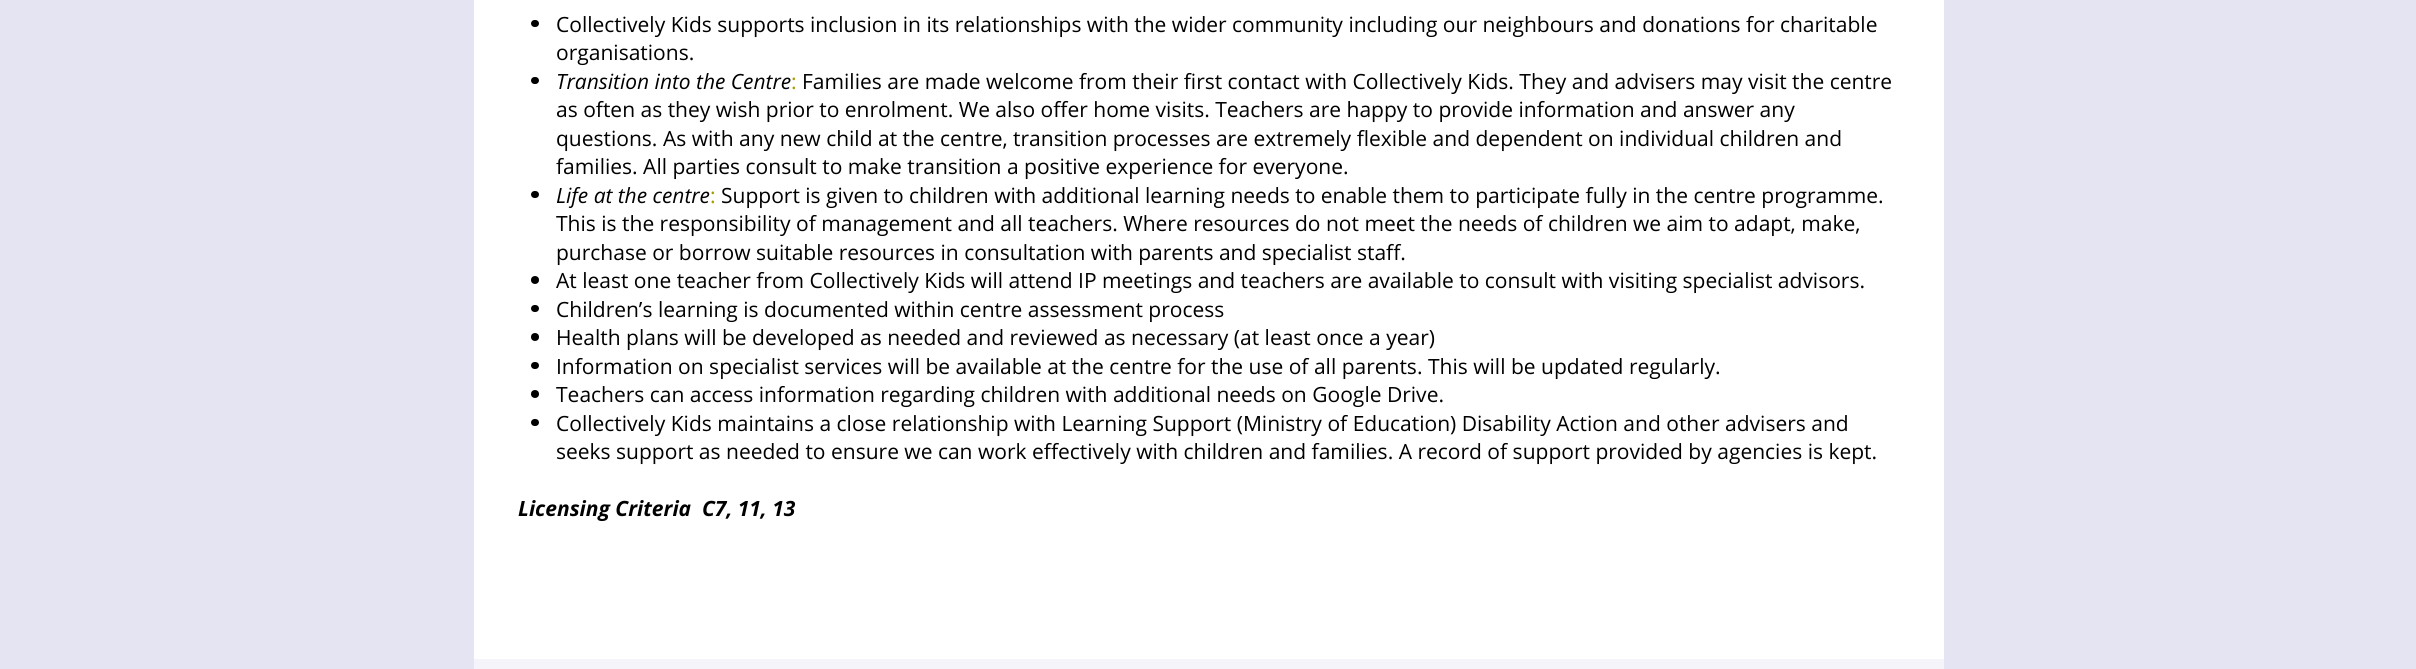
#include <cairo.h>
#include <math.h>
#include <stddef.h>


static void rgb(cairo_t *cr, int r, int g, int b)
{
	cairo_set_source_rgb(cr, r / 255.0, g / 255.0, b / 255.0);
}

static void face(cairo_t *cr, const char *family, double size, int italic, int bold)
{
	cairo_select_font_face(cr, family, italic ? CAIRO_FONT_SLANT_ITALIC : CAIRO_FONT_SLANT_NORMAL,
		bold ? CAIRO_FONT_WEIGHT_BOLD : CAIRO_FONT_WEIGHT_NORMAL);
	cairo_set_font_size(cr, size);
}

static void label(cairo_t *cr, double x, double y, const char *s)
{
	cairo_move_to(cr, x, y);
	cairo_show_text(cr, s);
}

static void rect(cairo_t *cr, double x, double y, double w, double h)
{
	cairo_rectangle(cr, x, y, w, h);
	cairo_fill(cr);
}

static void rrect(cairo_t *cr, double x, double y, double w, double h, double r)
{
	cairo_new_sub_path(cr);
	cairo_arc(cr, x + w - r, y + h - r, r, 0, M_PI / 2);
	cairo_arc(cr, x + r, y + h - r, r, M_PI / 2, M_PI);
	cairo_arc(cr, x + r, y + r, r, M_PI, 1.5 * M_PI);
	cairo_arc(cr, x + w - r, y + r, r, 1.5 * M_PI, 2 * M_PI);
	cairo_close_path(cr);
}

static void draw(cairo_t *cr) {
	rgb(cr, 228, 228, 243);
	cairo_paint(cr);
	rgb(cr, 255, 255, 255);
	rect(cr, 474, 0, 1470, 659);
	rgb(cr, 0, 0, 0);
	rrect(cr, 531, 20, 8, 7, 3.5);
	cairo_fill(cr);
	face(cr, "Open Sans", 21, 0, 0);
	label(cr, 556, 32, "Collectively Kids supports inclusion in its relationships with the wider community including our neighbours and donations for charitable");
	label(cr, 556, 60, "organisations.");
	rrect(cr, 531, 77, 8, 7, 3.5);
	cairo_fill(cr);
	face(cr, "Open Sans", 21, 1, 0);
	label(cr, 556, 89, "Transition into the Centre");
	face(cr, "Open Sans", 21, 0, 0);
	rgb(cr, 169, 155, 0);
	label(cr, 791, 89, ":");
	rgb(cr, 0, 0, 0);
	label(cr, 802, 89, "Families are made welcome from their first contact with Collectively Kids. They and advisers may visit the centre");
	label(cr, 556, 117, "as often as they wish prior to enrolment. We also offer home visits. Teachers are happy to provide information and answer any");
	label(cr, 556, 146, "questions. As with any new child at the centre, transition processes are extremely flexible and dependent on individual children and");
	label(cr, 556, 174, "families. All parties consult to make transition a positive experience for everyone.");
	rrect(cr, 531, 191, 8, 7, 3.5);
	cairo_fill(cr);
	face(cr, "Open Sans", 21, 1, 0);
	label(cr, 556, 203, "Life at the centre");
	face(cr, "Open Sans", 21, 0, 0);
	rgb(cr, 169, 155, 0);
	label(cr, 710, 203, ":");
	rgb(cr, 0, 0, 0);
	label(cr, 721, 203, "Support is given to children with additional learning needs to enable them to participate fully in the centre programme.");
	label(cr, 556, 231, "This is the responsibility of management and all teachers. Where resources do not meet the needs of children we aim to adapt, make,");
	label(cr, 556, 260, "purchase or borrow suitable resources in consultation with parents and specialist staff.");
	cairo_new_path(cr);
	cairo_arc(cr, 535, 280, 4, 0, 2 * M_PI);
	cairo_fill(cr);
	label(cr, 556, 288, "At least one teacher from Collectively Kids will attend IP meetings and teachers are available to consult with visiting specialist advisors.");
	rrect(cr, 531, 305, 8, 7, 3.5);
	cairo_fill(cr);
	label(cr, 556, 317, "Children’s learning is documented within centre assessment process");
	cairo_new_path(cr);
	cairo_arc(cr, 535, 337, 4, 0, 2 * M_PI);
	cairo_fill(cr);
	label(cr, 556, 345, "Health plans will be developed as needed and reviewed as necessary (at least once a year)");
	rrect(cr, 531, 362, 8, 7, 3.5);
	cairo_fill(cr);
	label(cr, 556, 374, "Information on specialist services will be available at the centre for the use of all parents. This will be updated regularly.");
	cairo_new_path(cr);
	cairo_arc(cr, 535, 394, 4, 0, 2 * M_PI);
	cairo_fill(cr);
	label(cr, 556, 402, "Teachers can access information regarding children with additional needs on Google Drive.");
	rrect(cr, 531, 419, 8, 7, 3.5);
	cairo_fill(cr);
	label(cr, 556, 431, "Collectively Kids maintains a close relationship with Learning Support (Ministry of Education) Disability Action and other advisers and");
	label(cr, 556, 459, "seeks support as needed to ensure we can work effectively with children and families. A record of support provided by agencies is kept.");
	face(cr, "Open Sans", 21, 1, 1);
	label(cr, 518, 516, "Licensing Criteria  C7, 11, 13");
	rgb(cr, 244, 244, 250);
	rect(cr, 474, 659, 1470, 10);
}

int main(void) {
	cairo_surface_t *surface = cairo_image_surface_create(CAIRO_FORMAT_RGB24, 2416, 669);
	cairo_t *cr = cairo_create(surface);
	cairo_font_options_t *options = cairo_font_options_create();
	cairo_font_options_set_hint_metrics(options, CAIRO_HINT_METRICS_OFF);
	cairo_font_options_set_hint_style(options, CAIRO_HINT_STYLE_NONE);
	cairo_set_font_options(cr, options);
	cairo_set_miter_limit(cr, 4);
	draw(cr);
	cairo_surface_write_to_png(surface, "render.png");
	cairo_font_options_destroy(options);
	cairo_destroy(cr);
	cairo_surface_destroy(surface);
	return 0;
}
